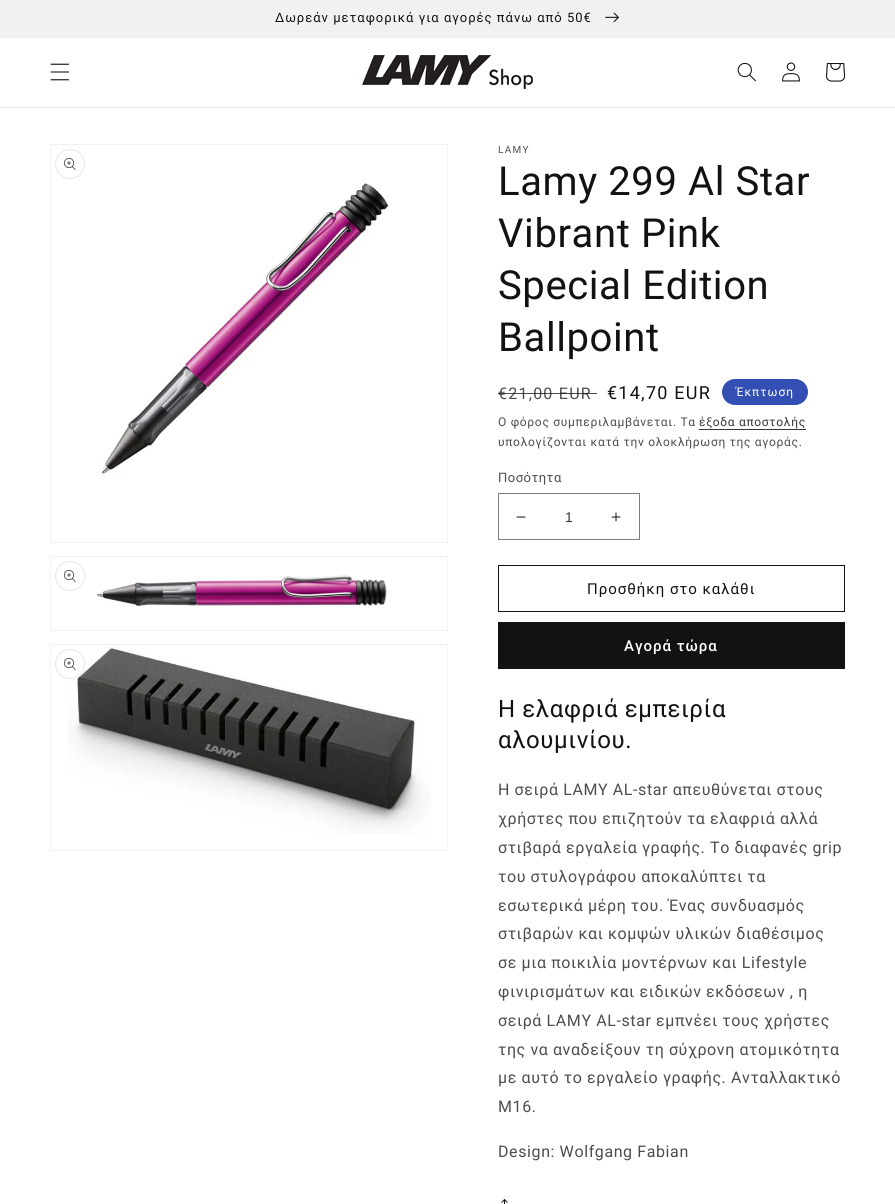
#include <cairo.h>
#include <math.h>
#include <stddef.h>


static void rgb(cairo_t *cr, int r, int g, int b)
{
	cairo_set_source_rgb(cr, r / 255.0, g / 255.0, b / 255.0);
}

static void face(cairo_t *cr, const char *family, double size, int italic, int bold)
{
	cairo_select_font_face(cr, family, italic ? CAIRO_FONT_SLANT_ITALIC : CAIRO_FONT_SLANT_NORMAL,
		bold ? CAIRO_FONT_WEIGHT_BOLD : CAIRO_FONT_WEIGHT_NORMAL);
	cairo_set_font_size(cr, size);
}

static void label(cairo_t *cr, double x, double y, const char *s)
{
	cairo_move_to(cr, x, y);
	cairo_show_text(cr, s);
}

static void tracked(cairo_t *cr, double x, double y, const char *s, double letter, double word)
{
	cairo_move_to(cr, x, y);
	while (*s) {
		char ch[5] = {0};
		int n = 0;
		do ch[n++] = *s++; while ((*s & 0xC0) == 0x80);
		cairo_show_text(cr, ch);
		cairo_rel_move_to(cr, letter + word * (*ch == ' '), 0);
	}
}

static void rect(cairo_t *cr, double x, double y, double w, double h)
{
	cairo_rectangle(cr, x, y, w, h);
	cairo_fill(cr);
}

static void rrect(cairo_t *cr, double x, double y, double w, double h, double r)
{
	cairo_new_sub_path(cr);
	cairo_arc(cr, x + w - r, y + h - r, r, 0, M_PI / 2);
	cairo_arc(cr, x + r, y + h - r, r, M_PI / 2, M_PI);
	cairo_arc(cr, x + r, y + r, r, M_PI, 1.5 * M_PI);
	cairo_arc(cr, x + w - r, y + r, r, 1.5 * M_PI, 2 * M_PI);
	cairo_close_path(cr);
}

static void image(cairo_t *cr, const char *path, double x, double y, double w, double h)
{
	cairo_surface_t *image = cairo_image_surface_create_from_png(path);
	cairo_save(cr);
	cairo_set_source_surface(cr, image, x, y);
	cairo_rectangle(cr, x, y, w, h);
	cairo_fill(cr);
	cairo_restore(cr);
	cairo_surface_destroy(image);
}

static void draw(cairo_t *cr) {
	rgb(cr, 255, 255, 255);
	cairo_paint(cr);
	rgb(cr, 236, 236, 236);
	rect(cr, 0, 37, 895, 1);
	rgb(cr, 241, 241, 241);
	rect(cr, 0, 0, 895, 37);
	face(cr, "Roboto", 13, 0, 0);
	rgb(cr, 18, 18, 18);
	tracked(cr, 275, 22, "Δωρεάν μεταφορικά για αγορές πάνω από 50€", 1, 0);
	image(cr, "image0.png", 605, 12, 14, 11);
	rgb(cr, 236, 236, 236);
	rect(cr, 0, 107, 895, 1);
	image(cr, "image1.png", 50, 63, 20, 18);
	image(cr, "image2.png", 362, 55, 171, 34);
	image(cr, "image3.png", 737, 62, 19, 20);
	image(cr, "image4.png", 782, 62, 18, 20);
	image(cr, "image5.png", 826, 63, 20, 19);
	cairo_rectangle(cr, 50.5, 144.5, 397, 398);
	rgb(cr, 243, 243, 243);
	cairo_set_line_width(cr, 1);
	cairo_stroke(cr);
	image(cr, "image6.png", 100, 183, 289, 291);
	cairo_arc(cr, 70, 164, 14.5, 0, 2 * M_PI);
	rgb(cr, 231, 231, 231);
	cairo_stroke(cr);
	image(cr, "image7.png", 64, 158, 12, 12);
	cairo_rectangle(cr, 50.5, 556.5, 397, 74);
	rgb(cr, 243, 243, 243);
	cairo_stroke(cr);
	image(cr, "image8.png", 96, 575, 291, 31);
	cairo_arc(cr, 70, 576, 14.5, 0, 2 * M_PI);
	rgb(cr, 231, 231, 231);
	cairo_stroke(cr);
	image(cr, "image7.png", 64, 570, 12, 12);
	cairo_rectangle(cr, 50.5, 644.5, 397, 206);
	rgb(cr, 243, 243, 243);
	cairo_stroke(cr);
	image(cr, "image9.png", 68, 647, 363, 187);
	rgb(cr, 255, 255, 255);
	cairo_arc(cr, 70, 664, 14.5, 0, 2 * M_PI);
	cairo_fill_preserve(cr);
	rgb(cr, 231, 231, 231);
	cairo_stroke(cr);
	image(cr, "image7.png", 64, 658, 12, 12);
	face(cr, "Roboto", 10, 0, 0);
	rgb(cr, 77, 77, 77);
	tracked(cr, 498, 153, "LAMY", 1.25, 0);
	face(cr, "Roboto", 40, 0, 0);
	rgb(cr, 18, 18, 18);
	tracked(cr, 498, 195, "Lamy 299 Al Star", 0.6, 0);
	tracked(cr, 498, 247, "Vibrant Pink", 0.6, 0);
	tracked(cr, 498, 299, "Special Edition", 0.6, 0);
	tracked(cr, 498, 351, "Ballpoint", 0.6, 0);
	face(cr, "Roboto", 16, 0, 0);
	rgb(cr, 77, 77, 77);
	tracked(cr, 498, 399, "€21,00 EUR", 1.25, 0);
	cairo_set_source_rgba(cr, 0.071, 0.071, 0.071, 0.75);
	rect(cr, 498, 393, 99, 1);
	face(cr, "Roboto", 18, 0, 0);
	rgb(cr, 18, 18, 18);
	tracked(cr, 607, 399, "€14,70 EUR", 1.25, 0);
	rgb(cr, 51, 79, 180);
	rrect(cr, 722.5, 379.5, 85, 25, 12.5);
	cairo_fill_preserve(cr);
	cairo_stroke(cr);
	face(cr, "Roboto", 12, 0, 0);
	rgb(cr, 255, 255, 255);
	tracked(cr, 736, 396, "Έκπτωση", 1, 0);
	rgb(cr, 77, 77, 77);
	tracked(cr, 498, 426, "Ο φόρος συμπεριλαμβάνεται. Τα", 0.7, 0);
	rgb(cr, 54, 54, 54);
	tracked(cr, 699, 426, "έξοδα αποστολής", 0.7, 0);
	rect(cr, 699, 429, 107, 1);
	rgb(cr, 77, 77, 77);
	tracked(cr, 498, 446, "υπολογίζονται κατά την ολοκλήρωση της αγοράς.", 0.7, 0);
	face(cr, "Roboto", 13, 0, 0);
	tracked(cr, 498, 482, "Ποσότητα", 0.5, 0);
	image(cr, "image10.png", 516, 516, 10, 2);
	image(cr, "image11.png", 611, 512, 10, 10);
	cairo_rectangle(cr, 498.5, 493.5, 141, 46);
	rgb(cr, 125, 125, 125);
	cairo_stroke(cr);
	face(cr, "Liberation Sans", 14, 0, 0);
	rgb(cr, 54, 54, 54);
	label(cr, 565, 522, "1");
	cairo_rectangle(cr, 498.5, 565.5, 346, 46);
	rgb(cr, 18, 18, 18);
	cairo_stroke(cr);
	face(cr, "Roboto", 15, 0, 0);
	tracked(cr, 587, 594, "Προσθήκη στο καλάθι", 1, 0);
	rect(cr, 498, 622, 347, 47);
	face(cr, "Roboto Medium", 15, 0, 0);
	rgb(cr, 255, 255, 255);
	tracked(cr, 624, 651, "Αγορά τώρα", 1, 0);
	face(cr, "Roboto", 24, 0, 0);
	rgb(cr, 18, 18, 18);
	tracked(cr, 498, 717, "Η ελαφριά εμπειρία", 0.6, 0);
	tracked(cr, 498, 748, "αλουμινίου.", 0.6, 0);
	face(cr, "Roboto", 16, 0, 0);
	rgb(cr, 77, 77, 77);
	tracked(cr, 498, 795, "Η σειρά LAMY AL-star απευθύνεται στους", 0.6, 0);
	tracked(cr, 498, 824, "χρήστες που επιζητούν τα ελαφριά αλλά", 0.6, 0);
	tracked(cr, 498, 853, "στιβαρά εργαλεία γραφής. Το διαφανές grip", 0.6, 0);
	tracked(cr, 498, 882, "του στυλογράφου αποκαλύπτει τα", 0.6, 0);
	tracked(cr, 498, 911, "εσωτερικά μέρη του. Ένας συνδυασμός", 0.6, 0);
	tracked(cr, 498, 939, "στιβαρών και κομψών υλικών διαθέσιμος", 0.6, 0);
	tracked(cr, 498, 968, "σε μια ποικιλία μοντέρνων και Lifestyle", 0.6, 0);
	tracked(cr, 498, 997, "φινιρισμάτων και ειδικών εκδόσεων , η", 0.6, 0);
	tracked(cr, 498, 1026, "σειρά LAMY AL-star εμπνέει τους χρήστες", 0.6, 0);
	tracked(cr, 498, 1055, "της να αναδείξουν τη σύχρονη ατομικότητα", 0.6, 0);
	tracked(cr, 498, 1083, "με αυτό το εργαλείο γραφής. Ανταλλακτικό", 0.6, 0);
	tracked(cr, 498, 1112, "Μ16.", 0.6, 0);
	tracked(cr, 498, 1157, "Design: Wolfgang Fabian", 0.6, 0);
	image(cr, "image12.png", 501, 1199, 7, 5);
}

int main(void) {
	cairo_surface_t *surface = cairo_image_surface_create(CAIRO_FORMAT_RGB24, 895, 1204);
	cairo_t *cr = cairo_create(surface);
	cairo_font_options_t *options = cairo_font_options_create();
	cairo_font_options_set_hint_metrics(options, CAIRO_HINT_METRICS_OFF);
	cairo_font_options_set_hint_style(options, CAIRO_HINT_STYLE_NONE);
	cairo_set_font_options(cr, options);
	cairo_set_miter_limit(cr, 4);
	draw(cr);
	cairo_surface_write_to_png(surface, "render.png");
	cairo_font_options_destroy(options);
	cairo_destroy(cr);
	cairo_surface_destroy(surface);
	return 0;
}
